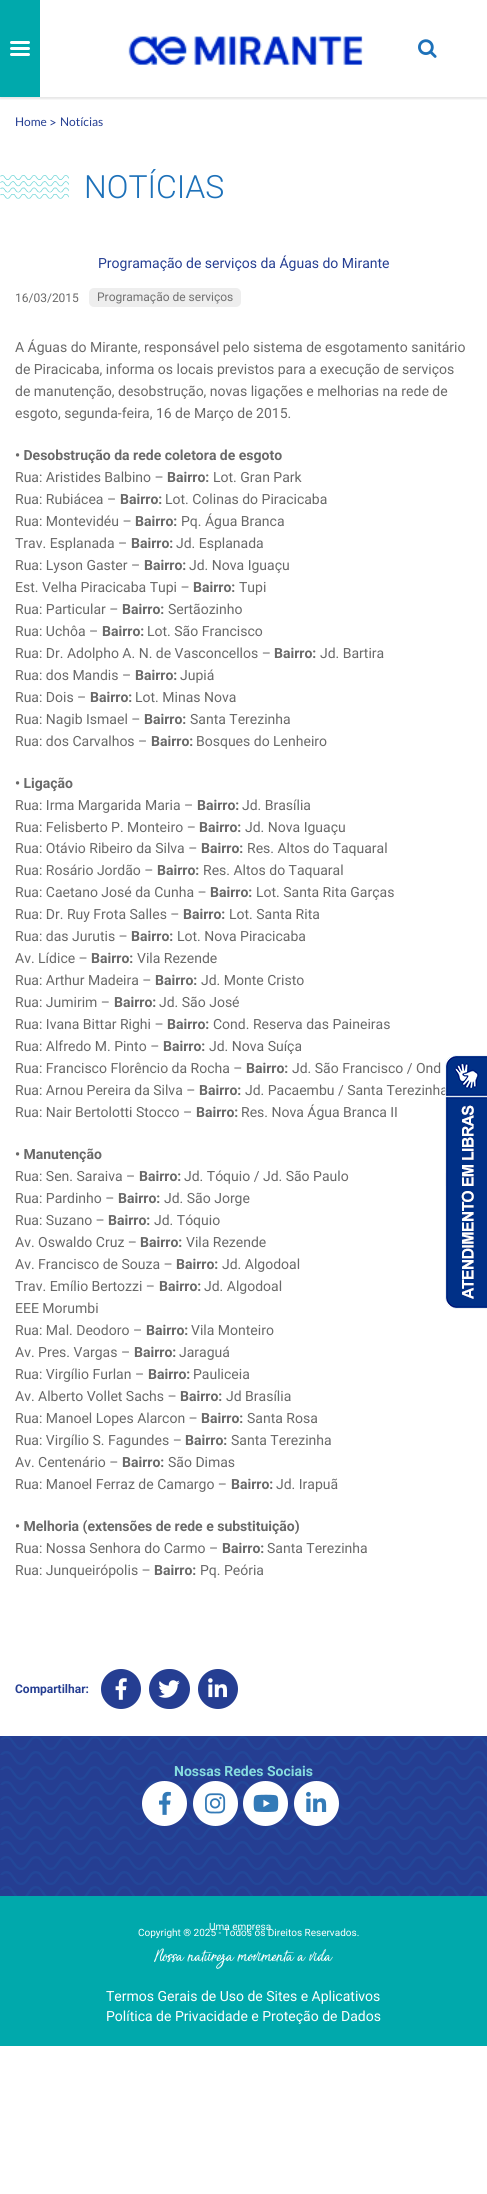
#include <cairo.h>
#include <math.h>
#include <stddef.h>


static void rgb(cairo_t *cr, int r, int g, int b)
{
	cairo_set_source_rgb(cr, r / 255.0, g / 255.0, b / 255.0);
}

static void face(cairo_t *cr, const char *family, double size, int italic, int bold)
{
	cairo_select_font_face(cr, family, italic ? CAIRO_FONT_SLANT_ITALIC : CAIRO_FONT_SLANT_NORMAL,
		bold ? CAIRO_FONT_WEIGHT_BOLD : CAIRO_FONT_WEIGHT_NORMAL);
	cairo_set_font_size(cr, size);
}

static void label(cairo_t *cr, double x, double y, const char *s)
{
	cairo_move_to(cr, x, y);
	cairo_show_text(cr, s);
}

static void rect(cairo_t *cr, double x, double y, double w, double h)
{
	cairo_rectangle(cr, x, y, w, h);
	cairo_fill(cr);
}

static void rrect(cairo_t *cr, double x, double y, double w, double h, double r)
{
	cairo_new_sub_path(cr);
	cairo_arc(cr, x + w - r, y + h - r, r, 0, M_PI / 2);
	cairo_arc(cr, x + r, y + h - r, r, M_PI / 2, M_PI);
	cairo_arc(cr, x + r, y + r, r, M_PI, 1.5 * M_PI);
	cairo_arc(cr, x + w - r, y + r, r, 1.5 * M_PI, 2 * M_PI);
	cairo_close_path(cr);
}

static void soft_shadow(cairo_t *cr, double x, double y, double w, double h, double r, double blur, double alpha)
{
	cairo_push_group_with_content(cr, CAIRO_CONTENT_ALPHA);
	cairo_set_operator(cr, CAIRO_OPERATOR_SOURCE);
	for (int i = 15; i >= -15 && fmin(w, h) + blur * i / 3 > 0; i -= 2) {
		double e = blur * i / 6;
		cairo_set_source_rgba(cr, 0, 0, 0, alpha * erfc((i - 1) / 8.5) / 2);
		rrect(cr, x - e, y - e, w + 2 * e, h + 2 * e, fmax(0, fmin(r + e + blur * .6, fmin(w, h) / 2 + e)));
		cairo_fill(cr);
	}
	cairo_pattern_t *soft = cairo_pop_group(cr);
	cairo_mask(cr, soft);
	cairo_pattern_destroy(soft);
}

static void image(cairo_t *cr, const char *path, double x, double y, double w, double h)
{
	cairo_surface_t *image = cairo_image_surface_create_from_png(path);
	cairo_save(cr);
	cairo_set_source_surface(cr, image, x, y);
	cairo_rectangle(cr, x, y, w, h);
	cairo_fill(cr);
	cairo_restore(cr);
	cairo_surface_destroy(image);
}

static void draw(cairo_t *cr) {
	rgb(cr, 255, 255, 255);
	cairo_paint(cr);
	cairo_save(cr);
	cairo_rectangle(cr, 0, 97, 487, 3);
	cairo_clip(cr);
	rgb(cr, 0, 0, 0);
	soft_shadow(cr, 0, 2, 487, 97, 0, 1, 0.1);
	cairo_restore(cr);
	rgb(cr, 0, 169, 172);
	rect(cr, 0, 0, 40, 97);
	rgb(cr, 255, 255, 255);
	rrect(cr, 10, 41, 20, 3, 1.5);
	cairo_fill(cr);
	rrect(cr, 10, 47, 20, 3, 1.5);
	cairo_fill(cr);
	rrect(cr, 10, 53, 20, 3, 1.5);
	cairo_fill(cr);
	image(cr, "image0.png", 128, 36, 235, 29);
	image(cr, "image1.png", 418, 39, 19, 19);
	face(cr, "Lato", 12, 0, 0);
	rgb(cr, 37, 62, 146);
	label(cr, 15, 126, "Home");
	face(cr, "Lato", 13, 0, 0);
	label(cr, 49, 127, ">");
	face(cr, "Lato", 12, 0, 0);
	label(cr, 60, 126, "Notícias");
	image(cr, "image2.png", 0, 175, 69, 24);
	face(cr, "Roboto Light", 32, 0, 0);
	rgb(cr, 29, 113, 185);
	label(cr, 84, 198, "NOTÍCIAS");
	face(cr, "Roboto", 14, 0, 0);
	rgb(cr, 37, 62, 146);
	label(cr, 98, 268, "Programação de serviços da Águas do Mirante");
	face(cr, "Roboto", 12, 0, 0);
	rgb(cr, 105, 105, 105);
	label(cr, 15, 302, "16/03/2015");
	rgb(cr, 238, 238, 238);
	rrect(cr, 89, 288, 152, 19, 5);
	cairo_fill(cr);
	rgb(cr, 112, 112, 112);
	label(cr, 97, 301, "Programação de serviços");
	face(cr, "Roboto", 14, 0, 0);
	rgb(cr, 105, 105, 105);
	label(cr, 15, 352, "A Águas do Mirante, responsável pelo sistema de esgotamento sanitário");
	label(cr, 15, 374, "de Piracicaba, informa os locais previstos para a execução de serviços");
	label(cr, 15, 396, "de manutenção, desobstrução, novas ligações e melhorias na rede de");
	label(cr, 15, 418, "esgoto, segunda-feira, 16 de Março de 2015.");
	face(cr, "Roboto", 14, 0, 1);
	label(cr, 15, 460, "• Desobstrução da rede coletora de esgoto");
	face(cr, "Roboto", 14, 0, 0);
	label(cr, 15, 482, "Rua: Aristides Balbino –");
	face(cr, "Roboto", 14, 0, 1);
	label(cr, 167, 482, "Bairro:");
	face(cr, "Roboto", 14, 0, 0);
	label(cr, 213, 482, "Lot. Gran Park");
	label(cr, 15, 504, "Rua: Rubiácea –");
	face(cr, "Roboto", 14, 0, 1);
	label(cr, 120, 504, "Bairro:");
	face(cr, "Roboto", 14, 0, 0);
	label(cr, 165, 504, "Lot. Colinas do Piracicaba");
	label(cr, 15, 526, "Rua: Montevidéu –");
	face(cr, "Roboto", 14, 0, 1);
	label(cr, 135, 526, "Bairro:");
	face(cr, "Roboto", 14, 0, 0);
	label(cr, 181, 526, "Pq. Água Branca");
	label(cr, 15, 548, "Trav. Esplanada –");
	face(cr, "Roboto", 14, 0, 1);
	label(cr, 131, 548, "Bairro:");
	face(cr, "Roboto", 14, 0, 0);
	label(cr, 176, 548, "Jd. Esplanada");
	label(cr, 15, 570, "Rua: Lyson Gaster –");
	face(cr, "Roboto", 14, 0, 1);
	label(cr, 144, 570, "Bairro:");
	face(cr, "Roboto", 14, 0, 0);
	label(cr, 189, 570, "Jd. Nova Iguaçu");
	label(cr, 15, 592, "Est. Velha Piracicaba Tupi –");
	face(cr, "Roboto", 14, 0, 1);
	label(cr, 193, 592, "Bairro:");
	face(cr, "Roboto", 14, 0, 0);
	label(cr, 239, 592, "Tupi");
	label(cr, 15, 614, "Rua: Particular –");
	face(cr, "Roboto", 14, 0, 1);
	label(cr, 122, 614, "Bairro:");
	face(cr, "Roboto", 14, 0, 0);
	label(cr, 168, 614, "Sertãozinho");
	label(cr, 15, 636, "Rua: Uchôa –");
	face(cr, "Roboto", 14, 0, 1);
	label(cr, 102, 636, "Bairro:");
	face(cr, "Roboto", 14, 0, 0);
	label(cr, 147, 636, "Lot. São Francisco");
	label(cr, 15, 658, "Rua: Dr. Adolpho A. N. de Vasconcellos –");
	face(cr, "Roboto", 14, 0, 1);
	label(cr, 274, 658, "Bairro:");
	face(cr, "Roboto", 14, 0, 0);
	label(cr, 320, 658, "Jd. Bartira");
	label(cr, 15, 680, "Rua: dos Mandis –");
	face(cr, "Roboto", 14, 0, 1);
	label(cr, 135, 680, "Bairro:");
	face(cr, "Roboto", 14, 0, 0);
	label(cr, 180, 680, "Jupiá");
	label(cr, 15, 702, "Rua: Dois –");
	face(cr, "Roboto", 14, 0, 1);
	label(cr, 90, 702, "Bairro:");
	face(cr, "Roboto", 14, 0, 0);
	label(cr, 135, 702, "Lot. Minas Nova");
	label(cr, 15, 724, "Rua: Nagib Ismael –");
	face(cr, "Roboto", 14, 0, 1);
	label(cr, 144, 724, "Bairro:");
	face(cr, "Roboto", 14, 0, 0);
	label(cr, 190, 724, "Santa Terezinha");
	label(cr, 15, 746, "Rua: dos Carvalhos –");
	face(cr, "Roboto", 14, 0, 1);
	label(cr, 151, 746, "Bairro:");
	face(cr, "Roboto", 14, 0, 0);
	label(cr, 196, 746, "Bosques do Lenheiro");
	face(cr, "Roboto", 14, 0, 1);
	label(cr, 15, 788, "• Ligação");
	face(cr, "Roboto", 14, 0, 0);
	label(cr, 15, 810, "Rua: Irma Margarida Maria –");
	face(cr, "Roboto", 14, 0, 1);
	label(cr, 197, 810, "Bairro:");
	face(cr, "Roboto", 14, 0, 0);
	label(cr, 242, 810, "Jd. Brasília");
	label(cr, 15, 832, "Rua: Felisberto P. Monteiro –");
	face(cr, "Roboto", 14, 0, 1);
	label(cr, 199, 832, "Bairro:");
	face(cr, "Roboto", 14, 0, 0);
	label(cr, 245, 832, "Jd. Nova Iguaçu");
	label(cr, 15, 853, "Rua: Otávio Ribeiro da Silva –");
	face(cr, "Roboto", 14, 0, 1);
	label(cr, 201, 853, "Bairro:");
	face(cr, "Roboto", 14, 0, 0);
	label(cr, 247, 853, "Res. Altos do Taquaral");
	label(cr, 15, 875, "Rua: Rosário Jordão –");
	face(cr, "Roboto", 14, 0, 1);
	label(cr, 157, 875, "Bairro:");
	face(cr, "Roboto", 14, 0, 0);
	label(cr, 203, 875, "Res. Altos do Taquaral");
	label(cr, 15, 897, "Rua: Caetano José da Cunha –");
	face(cr, "Roboto", 14, 0, 1);
	label(cr, 210, 897, "Bairro:");
	face(cr, "Roboto", 14, 0, 0);
	label(cr, 256, 897, "Lot. Santa Rita Garças");
	label(cr, 15, 919, "Rua: Dr. Ruy Frota Salles –");
	face(cr, "Roboto", 14, 0, 1);
	label(cr, 183, 919, "Bairro:");
	face(cr, "Roboto", 14, 0, 0);
	label(cr, 229, 919, "Lot. Santa Rita");
	label(cr, 15, 941, "Rua: das Jurutis –");
	face(cr, "Roboto", 14, 0, 1);
	label(cr, 131, 941, "Bairro:");
	face(cr, "Roboto", 14, 0, 0);
	label(cr, 177, 941, "Lot. Nova Piracicaba");
	label(cr, 15, 963, "Av. Lídice –");
	face(cr, "Roboto", 14, 0, 1);
	label(cr, 91, 963, "Bairro:");
	face(cr, "Roboto", 14, 0, 0);
	label(cr, 137, 963, "Vila Rezende");
	label(cr, 15, 985, "Rua: Arthur Madeira –");
	face(cr, "Roboto", 14, 0, 1);
	label(cr, 155, 985, "Bairro:");
	face(cr, "Roboto", 14, 0, 0);
	label(cr, 201, 985, "Jd. Monte Cristo");
	label(cr, 15, 1007, "Rua: Jumirim –");
	face(cr, "Roboto", 14, 0, 1);
	label(cr, 114, 1007, "Bairro:");
	face(cr, "Roboto", 14, 0, 0);
	label(cr, 159, 1007, "Jd. São José");
	label(cr, 15, 1029, "Rua: Ivana Bittar Righi –");
	face(cr, "Roboto", 14, 0, 1);
	label(cr, 167, 1029, "Bairro:");
	face(cr, "Roboto", 14, 0, 0);
	label(cr, 213, 1029, "Cond. Reserva das Paineiras");
	label(cr, 15, 1051, "Rua: Alfredo M. Pinto –");
	face(cr, "Roboto", 14, 0, 1);
	label(cr, 163, 1051, "Bairro:");
	face(cr, "Roboto", 14, 0, 0);
	label(cr, 209, 1051, "Jd. Nova Suíça");
	label(cr, 15, 1073, "Rua: Francisco Florêncio da Rocha –");
	face(cr, "Roboto", 14, 0, 1);
	label(cr, 246, 1073, "Bairro:");
	face(cr, "Roboto", 14, 0, 0);
	label(cr, 292, 1073, "Jd. São Francisco / Ond");
	label(cr, 15, 1095, "Rua: Arnou Pereira da Silva –");
	face(cr, "Roboto", 14, 0, 1);
	label(cr, 199, 1095, "Bairro:");
	face(cr, "Roboto", 14, 0, 0);
	label(cr, 245, 1095, "Jd. Pacaembu / Santa Terezinha");
	label(cr, 15, 1117, "Rua: Nair Bertolotti Stocco –");
	face(cr, "Roboto", 14, 0, 1);
	label(cr, 196, 1117, "Bairro:");
	face(cr, "Roboto", 14, 0, 0);
	label(cr, 241, 1117, "Res. Nova Água Branca II");
	face(cr, "Roboto", 14, 0, 1);
	label(cr, 15, 1159, "• Manutenção");
	face(cr, "Roboto", 14, 0, 0);
	label(cr, 15, 1181, "Rua: Sen. Saraiva –");
	face(cr, "Roboto", 14, 0, 1);
	label(cr, 139, 1181, "Bairro:");
	face(cr, "Roboto", 14, 0, 0);
	label(cr, 184, 1181, "Jd. Tóquio / Jd. São Paulo");
	label(cr, 15, 1203, "Rua: Pardinho –");
	face(cr, "Roboto", 14, 0, 1);
	label(cr, 118, 1203, "Bairro:");
	face(cr, "Roboto", 14, 0, 0);
	label(cr, 164, 1203, "Jd. São Jorge");
	label(cr, 15, 1225, "Rua: Suzano –");
	face(cr, "Roboto", 14, 0, 1);
	label(cr, 108, 1225, "Bairro:");
	face(cr, "Roboto", 14, 0, 0);
	label(cr, 154, 1225, "Jd. Tóquio");
	label(cr, 15, 1247, "Av. Oswaldo Cruz –");
	face(cr, "Roboto", 14, 0, 1);
	label(cr, 140, 1247, "Bairro:");
	face(cr, "Roboto", 14, 0, 0);
	label(cr, 186, 1247, "Vila Rezende");
	label(cr, 15, 1269, "Av. Francisco de Souza –");
	face(cr, "Roboto", 14, 0, 1);
	label(cr, 176, 1269, "Bairro:");
	face(cr, "Roboto", 14, 0, 0);
	label(cr, 222, 1269, "Jd. Algodoal");
	label(cr, 15, 1291, "Trav. Emílio Bertozzi –");
	face(cr, "Roboto", 14, 0, 1);
	label(cr, 159, 1291, "Bairro:");
	face(cr, "Roboto", 14, 0, 0);
	label(cr, 204, 1291, "Jd. Algodoal");
	label(cr, 15, 1313, "EEE Morumbi");
	label(cr, 15, 1335, "Rua: Mal. Deodoro –");
	face(cr, "Roboto", 14, 0, 1);
	label(cr, 146, 1335, "Bairro:");
	face(cr, "Roboto", 14, 0, 0);
	label(cr, 191, 1335, "Vila Monteiro");
	label(cr, 15, 1357, "Av. Pres. Vargas –");
	face(cr, "Roboto", 14, 0, 1);
	label(cr, 134, 1357, "Bairro:");
	face(cr, "Roboto", 14, 0, 0);
	label(cr, 179, 1357, "Jaraguá");
	label(cr, 15, 1379, "Rua: Virgílio Furlan –");
	face(cr, "Roboto", 14, 0, 1);
	label(cr, 148, 1379, "Bairro:");
	face(cr, "Roboto", 14, 0, 0);
	label(cr, 193, 1379, "Pauliceia");
	label(cr, 15, 1401, "Av. Alberto Vollet Sachs –");
	face(cr, "Roboto", 14, 0, 1);
	label(cr, 180, 1401, "Bairro:");
	face(cr, "Roboto", 14, 0, 0);
	label(cr, 226, 1401, "Jd Brasília");
	label(cr, 15, 1423, "Rua: Manoel Lopes Alarcon –");
	face(cr, "Roboto", 14, 0, 1);
	label(cr, 201, 1423, "Bairro:");
	face(cr, "Roboto", 14, 0, 0);
	label(cr, 247, 1423, "Santa Rosa");
	label(cr, 15, 1445, "Rua: Virgílio S. Fagundes –");
	face(cr, "Roboto", 14, 0, 1);
	label(cr, 185, 1445, "Bairro:");
	face(cr, "Roboto", 14, 0, 0);
	label(cr, 231, 1445, "Santa Terezinha");
	label(cr, 15, 1467, "Av. Centenário –");
	face(cr, "Roboto", 14, 0, 1);
	label(cr, 122, 1467, "Bairro:");
	face(cr, "Roboto", 14, 0, 0);
	label(cr, 168, 1467, "São Dimas");
	label(cr, 15, 1489, "Rua: Manoel Ferraz de Camargo –");
	face(cr, "Roboto", 14, 0, 1);
	label(cr, 231, 1489, "Bairro:");
	face(cr, "Roboto", 14, 0, 0);
	label(cr, 276, 1489, "Jd. Irapuã");
	face(cr, "Roboto", 14, 0, 1);
	label(cr, 15, 1531, "• Melhoria (extensões de rede e substituição)");
	face(cr, "Roboto", 14, 0, 0);
	label(cr, 15, 1553, "Rua: Nossa Senhora do Carmo –");
	face(cr, "Roboto", 14, 0, 1);
	label(cr, 222, 1553, "Bairro:");
	face(cr, "Roboto", 14, 0, 0);
	label(cr, 267, 1553, "Santa Terezinha");
	label(cr, 15, 1575, "Rua: Junqueirópolis –");
	face(cr, "Roboto", 14, 0, 1);
	label(cr, 154, 1575, "Bairro:");
	face(cr, "Roboto", 14, 0, 0);
	label(cr, 200, 1575, "Pq. Peória");
	face(cr, "Roboto", 12, 0, 1);
	rgb(cr, 37, 62, 146);
	label(cr, 15, 1693, "Compartilhar:");
	cairo_new_path(cr);
	cairo_arc(cr, 121, 1689, 20, 0, 2 * M_PI);
	cairo_fill(cr);
	image(cr, "image3.png", 115, 1678, 12, 22);
	rrect(cr, 149, 1669, 41, 40, 20);
	cairo_fill(cr);
	image(cr, "image4.png", 158, 1680, 22, 18);
	cairo_arc(cr, 218, 1689, 20, 0, 2 * M_PI);
	cairo_fill(cr);
	image(cr, "image5.png", 208, 1678, 19, 20);
	image(cr, "image6.png", 445, 1055, 42, 35);
	image(cr, "image7.png", 445, 1055, 42, 254);
	rect(cr, 0, 1736, 487, 160);
	image(cr, "image8.png", 0, 1736, 487, 160);
	face(cr, "Roboto", 14, 0, 1);
	rgb(cr, 134, 220, 222);
	label(cr, 174, 1776, "Nossas Redes Sociais");
	rgb(cr, 255, 255, 255);
	cairo_new_path(cr);
	cairo_arc(cr, 164.5, 1803.5, 22.5, 0, 2 * M_PI);
	cairo_fill(cr);
	image(cr, "image9.png", 159, 1791, 12, 24);
	cairo_arc(cr, 215.5, 1803.5, 22.5, 0, 2 * M_PI);
	cairo_fill(cr);
	image(cr, "image10.png", 205, 1793, 21, 21);
	cairo_arc(cr, 265.5, 1803.5, 22.5, 0, 2 * M_PI);
	cairo_fill(cr);
	image(cr, "image11.png", 253, 1794, 26, 18);
	cairo_arc(cr, 316.5, 1803.5, 22.5, 0, 2 * M_PI);
	cairo_fill(cr);
	image(cr, "image12.png", 306, 1791, 21, 21);
	rgb(cr, 0, 169, 172);
	rect(cr, 0, 1896, 487, 150);
	face(cr, "Roboto", 10, 0, 0);
	rgb(cr, 255, 255, 255);
	label(cr, 209, 1930, "Uma empresa");
	label(cr, 138, 1936, "Copyright ® 2025 - Todos os Direitos Reservados.");
	face(cr, "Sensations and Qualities", 22, 0, 0);
	label(cr, 154, 1961, "Nossa natureza movimenta a vida");
	face(cr, "Roboto", 14, 0, 0);
	label(cr, 106, 2001, "Termos Gerais de Uso de Sites e Aplicativos");
	label(cr, 106, 2021, "Política de Privacidade e Proteção de Dados");
}

int main(void) {
	cairo_surface_t *surface = cairo_image_surface_create(CAIRO_FORMAT_RGB24, 487, 2194);
	cairo_t *cr = cairo_create(surface);
	cairo_font_options_t *options = cairo_font_options_create();
	cairo_font_options_set_hint_metrics(options, CAIRO_HINT_METRICS_OFF);
	cairo_font_options_set_hint_style(options, CAIRO_HINT_STYLE_NONE);
	cairo_set_font_options(cr, options);
	cairo_set_miter_limit(cr, 4);
	draw(cr);
	cairo_surface_write_to_png(surface, "render.png");
	cairo_font_options_destroy(options);
	cairo_destroy(cr);
	cairo_surface_destroy(surface);
	return 0;
}
